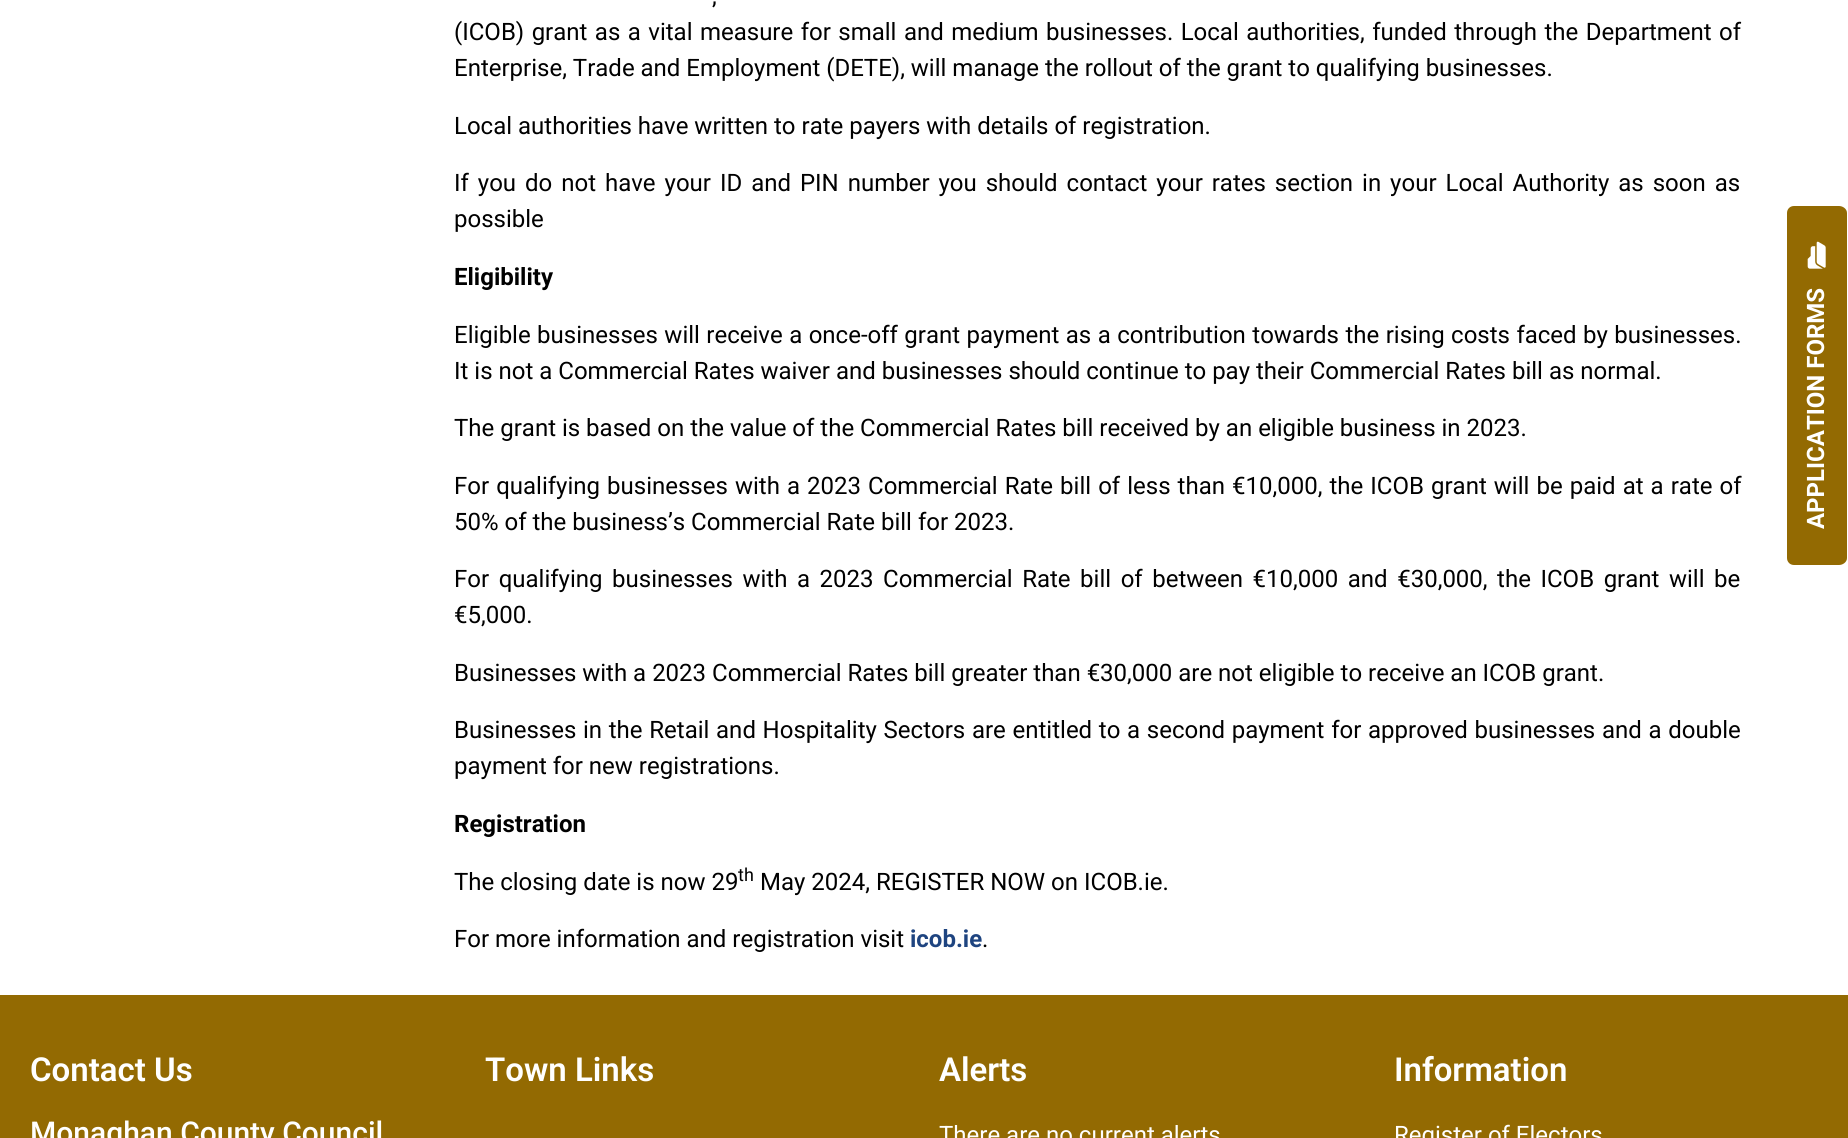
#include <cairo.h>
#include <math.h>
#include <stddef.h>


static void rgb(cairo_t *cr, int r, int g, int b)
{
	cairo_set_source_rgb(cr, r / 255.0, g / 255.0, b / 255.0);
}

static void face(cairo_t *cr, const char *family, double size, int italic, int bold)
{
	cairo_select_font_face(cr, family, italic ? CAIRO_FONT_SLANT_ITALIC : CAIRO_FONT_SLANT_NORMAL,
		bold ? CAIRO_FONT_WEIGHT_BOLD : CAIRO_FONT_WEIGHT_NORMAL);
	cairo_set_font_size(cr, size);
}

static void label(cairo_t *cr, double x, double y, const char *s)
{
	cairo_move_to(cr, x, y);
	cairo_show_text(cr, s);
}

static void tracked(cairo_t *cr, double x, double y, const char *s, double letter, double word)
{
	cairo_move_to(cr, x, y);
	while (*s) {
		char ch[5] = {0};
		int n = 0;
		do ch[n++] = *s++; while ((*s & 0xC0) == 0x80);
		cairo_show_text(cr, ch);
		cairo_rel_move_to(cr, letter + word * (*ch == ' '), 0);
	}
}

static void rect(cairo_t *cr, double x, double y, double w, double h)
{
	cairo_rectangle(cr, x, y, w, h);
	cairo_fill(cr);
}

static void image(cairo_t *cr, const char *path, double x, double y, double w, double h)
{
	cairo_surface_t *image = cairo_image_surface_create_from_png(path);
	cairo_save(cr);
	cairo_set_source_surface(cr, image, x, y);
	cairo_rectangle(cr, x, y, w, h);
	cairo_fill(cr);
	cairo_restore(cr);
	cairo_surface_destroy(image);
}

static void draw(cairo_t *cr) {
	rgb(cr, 255, 255, 255);
	cairo_paint(cr);
	face(cr, "Roboto", 24, 0, 0);
	rgb(cr, 0, 0, 0);
	tracked(cr, 712, 4, ",", 0, 3);
	tracked(cr, 454, 40, "(ICOB) grant as a vital measure for small and medium businesses. Local authorities, funded through the Department of", 0, 1.5);
	label(cr, 454, 76, "Enterprise, Trade and Employment (DETE), will manage the rollout of the grant to qualifying businesses.");
	label(cr, 454, 134, "Local authorities have written to rate payers with details of registration.");
	tracked(cr, 454, 191, "If you do not have your ID and PIN number you should contact your rates section in your Local Authority as soon as", 0, 3);
	label(cr, 454, 227, "possible");
	face(cr, "Roboto", 24, 0, 1);
	label(cr, 454, 285, "Eligibility");
	face(cr, "Roboto", 24, 0, 0);
	tracked(cr, 454, 343, "Eligible businesses will receive a once-off grant payment as a contribution towards the rising costs faced by businesses.", 0, 0.5);
	label(cr, 454, 379, "It is not a Commercial Rates waiver and businesses should continue to pay their Commercial Rates bill as normal.");
	label(cr, 454, 436, "The grant is based on the value of the Commercial Rates bill received by an eligible business in 2023.");
	tracked(cr, 454, 494, "For qualifying businesses with a 2023 Commercial Rate bill of less than €10,000, the ICOB grant will be paid at a rate of", 0, 1.1);
	label(cr, 454, 530, "50% of the business’s Commercial Rate bill for 2023.");
	tracked(cr, 454, 587, "For qualifying businesses with a 2023 Commercial Rate bill of between €10,000 and €30,000, the ICOB grant will be", 0, 3.6);
	label(cr, 454, 623, "€5,000.");
	label(cr, 454, 681, "Businesses with a 2023 Commercial Rates bill greater than €30,000 are not eligible to receive an ICOB grant.");
	tracked(cr, 454, 738, "Businesses in the Retail and Hospitality Sectors are entitled to a second payment for approved businesses and a double", 0, 0.75);
	label(cr, 454, 774, "payment for new registrations.");
	face(cr, "Roboto", 24, 0, 1);
	label(cr, 454, 832, "Registration");
	face(cr, "Roboto", 24, 0, 0);
	label(cr, 454, 890, "The closing date is now 29");
	face(cr, "Roboto", 18, 0, 0);
	label(cr, 738, 881, "th");
	face(cr, "Roboto", 24, 0, 0);
	label(cr, 760, 890, "May 2024, REGISTER NOW on ICOB.ie.");
	label(cr, 454, 947, "For more information and registration visit");
	face(cr, "Roboto", 24, 0, 1);
	rgb(cr, 30, 68, 128);
	label(cr, 910, 947, "icob.ie");
	face(cr, "Roboto", 24, 0, 0);
	rgb(cr, 0, 0, 0);
	label(cr, 982, 947, ".");
	rgb(cr, 147, 106, 2);
	cairo_new_path(cr);
	cairo_move_to(cr, 1787, 558);
	cairo_line_to(cr, 1787, 213);
	cairo_curve_to(cr, 1787, 209, 1790, 206, 1794, 206);
	cairo_line_to(cr, 1839, 206);
	cairo_curve_to(cr, 1843, 206, 1847, 209, 1847, 213);
	cairo_line_to(cr, 1847, 558);
	cairo_curve_to(cr, 1847, 562, 1843, 565, 1839, 565);
	cairo_line_to(cr, 1794, 565);
	cairo_curve_to(cr, 1790, 565, 1787, 562, 1787, 558);
	cairo_close_path(cr);
	cairo_fill(cr);
	image(cr, "image0.png", 1807, 241, 19, 28);
	face(cr, "Roboto", 24, 0, 1);
	rgb(cr, 255, 255, 255);
	cairo_save(cr);
	cairo_translate(cr, 1824, 529);
	cairo_rotate(cr, -90 * M_PI / 180);
	label(cr, 0, 0, "APPLICATION FORMS");
	cairo_restore(cr);
	rgb(cr, 147, 106, 2);
	rect(cr, 0, 995, 1848, 143);
	face(cr, "Roboto SemiBold", 33, 0, 0);
	rgb(cr, 255, 255, 255);
	label(cr, 30, 1081, "Contact Us");
	face(cr, "Roboto Medium", 30, 0, 0);
	label(cr, 30, 1143, "Monaghan County Council");
	face(cr, "Roboto SemiBold", 33, 0, 0);
	label(cr, 485, 1081, "Town Links");
	label(cr, 939, 1081, "Alerts");
	face(cr, "Roboto", 24, 0, 0);
	label(cr, 939, 1143, "There are no current alerts");
	face(cr, "Roboto SemiBold", 33, 0, 0);
	label(cr, 1394, 1081, "Information");
	face(cr, "Roboto", 24, 0, 0);
	label(cr, 1394, 1143, "Register of Electors");
}

int main(void) {
	cairo_surface_t *surface = cairo_image_surface_create(CAIRO_FORMAT_RGB24, 1848, 1138);
	cairo_t *cr = cairo_create(surface);
	cairo_font_options_t *options = cairo_font_options_create();
	cairo_font_options_set_hint_metrics(options, CAIRO_HINT_METRICS_OFF);
	cairo_font_options_set_hint_style(options, CAIRO_HINT_STYLE_NONE);
	cairo_set_font_options(cr, options);
	cairo_set_miter_limit(cr, 4);
	draw(cr);
	cairo_surface_write_to_png(surface, "render.png");
	cairo_font_options_destroy(options);
	cairo_destroy(cr);
	cairo_surface_destroy(surface);
	return 0;
}
